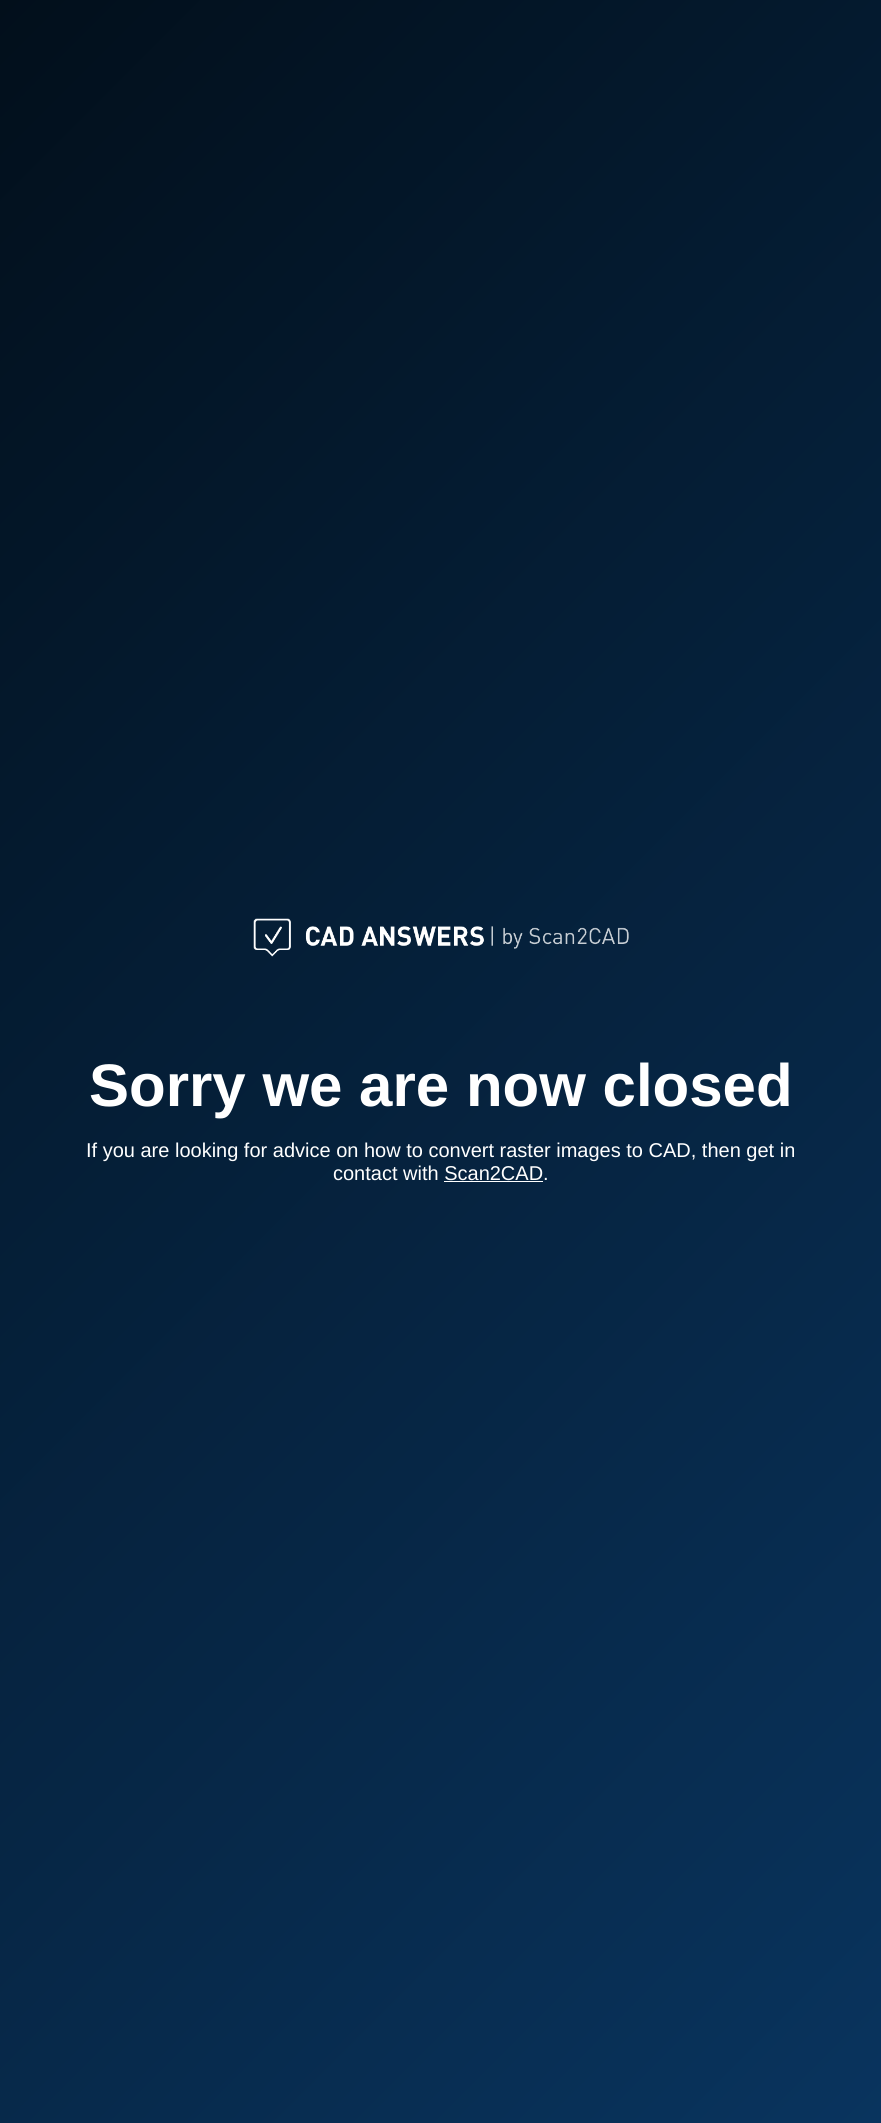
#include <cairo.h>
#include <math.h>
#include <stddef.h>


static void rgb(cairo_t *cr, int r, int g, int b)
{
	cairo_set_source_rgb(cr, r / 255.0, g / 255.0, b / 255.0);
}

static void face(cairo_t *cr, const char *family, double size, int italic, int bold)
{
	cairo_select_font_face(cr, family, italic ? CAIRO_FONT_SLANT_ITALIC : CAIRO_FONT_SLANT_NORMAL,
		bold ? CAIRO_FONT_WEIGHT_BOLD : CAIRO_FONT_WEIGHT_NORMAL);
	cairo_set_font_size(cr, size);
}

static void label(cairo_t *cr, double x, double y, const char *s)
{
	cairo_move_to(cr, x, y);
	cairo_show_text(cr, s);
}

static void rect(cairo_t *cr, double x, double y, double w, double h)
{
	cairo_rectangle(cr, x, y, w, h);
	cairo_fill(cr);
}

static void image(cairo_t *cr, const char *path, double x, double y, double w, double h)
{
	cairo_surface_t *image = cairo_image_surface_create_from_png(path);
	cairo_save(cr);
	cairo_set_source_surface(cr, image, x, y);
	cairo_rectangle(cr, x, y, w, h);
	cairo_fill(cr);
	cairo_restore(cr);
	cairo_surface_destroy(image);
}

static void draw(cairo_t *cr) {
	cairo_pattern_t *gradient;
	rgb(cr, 255, 255, 255);
	cairo_paint(cr);
	gradient = cairo_pattern_create_linear(-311, 311, 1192, 1813);
	cairo_pattern_add_color_stop_rgba(gradient, 0, 0.008, 0.059, 0.106, 1);
	cairo_pattern_add_color_stop_rgba(gradient, 1, 0.035, 0.204, 0.369, 1);
	cairo_set_source(cr, gradient);
	cairo_pattern_destroy(gradient);
	rect(cr, 0, 0, 881, 2123);
	image(cr, "image0.png", 253, 918, 376, 39);
	face(cr, "Liberation Sans", 60, 0, 1);
	rgb(cr, 255, 255, 255);
	label(cr, 89, 1106, "Sorry we are now closed");
	face(cr, "Liberation Sans", 20, 0, 0);
	label(cr, 86, 1157, "If you are looking for advice on how to convert raster images to CAD, then get in");
	label(cr, 333, 1180, "contact with Scan2CAD.");
	rect(cr, 444, 1181, 99, 1);
}

int main(void) {
	cairo_surface_t *surface = cairo_image_surface_create(CAIRO_FORMAT_RGB24, 881, 2123);
	cairo_t *cr = cairo_create(surface);
	cairo_font_options_t *options = cairo_font_options_create();
	cairo_font_options_set_hint_metrics(options, CAIRO_HINT_METRICS_OFF);
	cairo_font_options_set_hint_style(options, CAIRO_HINT_STYLE_NONE);
	cairo_set_font_options(cr, options);
	cairo_set_miter_limit(cr, 4);
	draw(cr);
	cairo_surface_write_to_png(surface, "render.png");
	cairo_font_options_destroy(options);
	cairo_destroy(cr);
	cairo_surface_destroy(surface);
	return 0;
}
